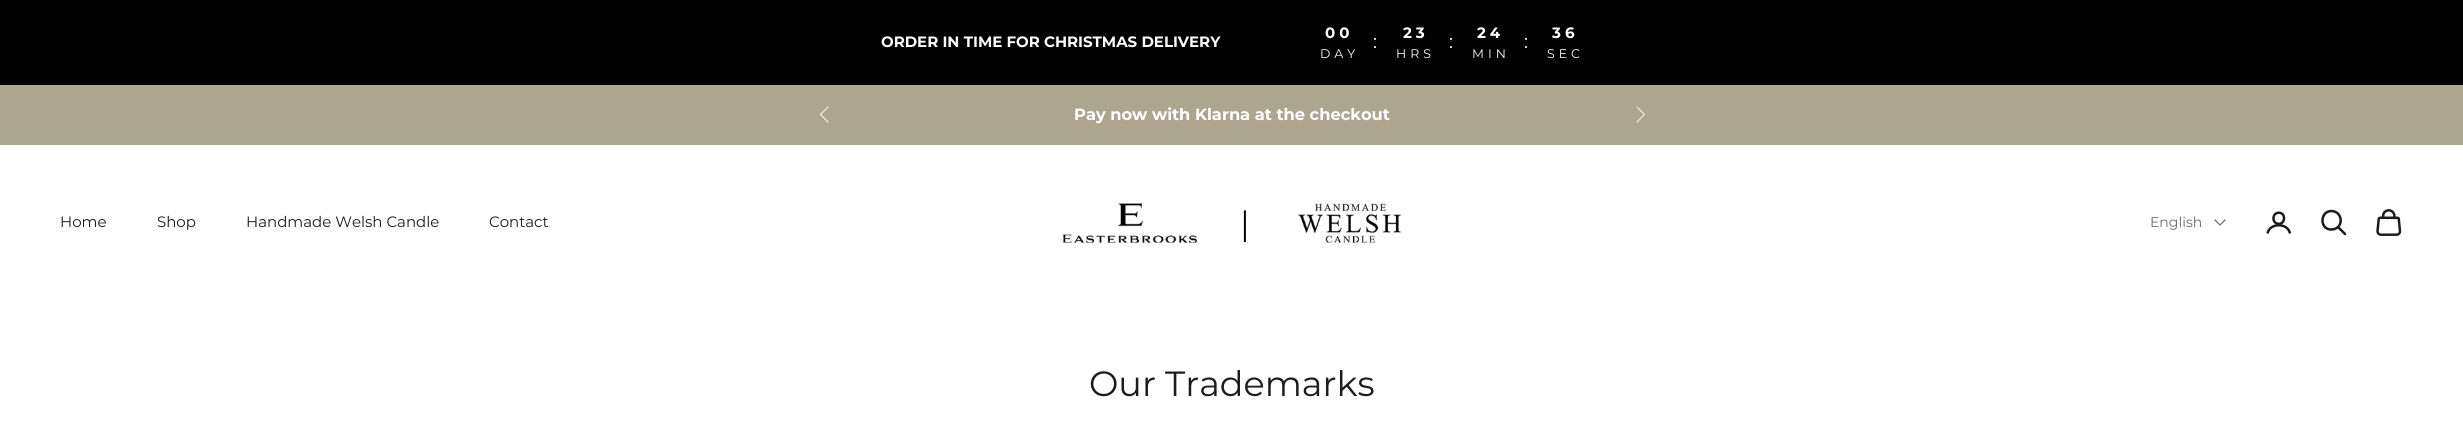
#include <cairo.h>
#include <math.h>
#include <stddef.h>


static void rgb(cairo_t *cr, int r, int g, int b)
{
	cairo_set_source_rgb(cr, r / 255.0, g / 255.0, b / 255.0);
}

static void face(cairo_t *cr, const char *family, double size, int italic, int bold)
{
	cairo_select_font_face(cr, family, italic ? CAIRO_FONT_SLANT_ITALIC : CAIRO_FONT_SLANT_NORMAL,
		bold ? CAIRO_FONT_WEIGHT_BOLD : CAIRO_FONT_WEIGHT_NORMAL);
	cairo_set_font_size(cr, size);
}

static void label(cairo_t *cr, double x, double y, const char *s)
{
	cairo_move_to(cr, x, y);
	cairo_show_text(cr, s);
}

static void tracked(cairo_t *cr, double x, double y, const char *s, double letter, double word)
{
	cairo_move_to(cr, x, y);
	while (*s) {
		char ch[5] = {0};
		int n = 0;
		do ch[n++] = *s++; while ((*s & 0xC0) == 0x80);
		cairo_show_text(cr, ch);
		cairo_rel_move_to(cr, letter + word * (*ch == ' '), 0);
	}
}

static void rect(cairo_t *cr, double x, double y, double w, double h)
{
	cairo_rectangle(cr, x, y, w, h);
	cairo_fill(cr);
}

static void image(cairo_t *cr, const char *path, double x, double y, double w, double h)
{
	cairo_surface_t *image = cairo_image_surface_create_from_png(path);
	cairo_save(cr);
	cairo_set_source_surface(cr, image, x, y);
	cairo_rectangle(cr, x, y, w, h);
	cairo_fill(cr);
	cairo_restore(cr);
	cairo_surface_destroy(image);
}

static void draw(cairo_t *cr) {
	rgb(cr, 255, 255, 255);
	cairo_paint(cr);
	rgb(cr, 0, 0, 0);
	rect(cr, 0, 0, 2463, 85);
	face(cr, "Montserrat", 15, 0, 1);
	rgb(cr, 255, 255, 255);
	label(cr, 881, 47, "ORDER IN TIME FOR CHRISTMAS DELIVERY");
	tracked(cr, 1325, 38, "00", 4, 0);
	face(cr, "Montserrat", 12.5, 0, 0);
	tracked(cr, 1320, 58, "DAY", 4, 0);
	face(cr, "Montserrat", 19, 0, 0);
	tracked(cr, 1373, 48, ":", 4, 0);
	face(cr, "Montserrat", 15, 0, 1);
	tracked(cr, 1403, 38, "23", 4, 0);
	face(cr, "Montserrat", 12.5, 0, 0);
	tracked(cr, 1396, 58, "HRS", 4, 0);
	face(cr, "Montserrat", 19, 0, 0);
	tracked(cr, 1449, 48, ":", 4, 0);
	face(cr, "Montserrat", 15, 0, 1);
	tracked(cr, 1477, 38, "24", 4, 0);
	face(cr, "Montserrat", 12.5, 0, 0);
	tracked(cr, 1472, 58, "MIN", 4, 0);
	face(cr, "Montserrat", 19, 0, 0);
	tracked(cr, 1524, 48, ":", 4, 0);
	face(cr, "Montserrat", 15, 0, 1);
	tracked(cr, 1552, 38, "36", 4, 0);
	face(cr, "Montserrat", 12.5, 0, 0);
	tracked(cr, 1547, 58, "SEC", 4, 0);
	rgb(cr, 174, 165, 143);
	rect(cr, 0, 85, 2463, 60);
	cairo_new_path(cr);
	cairo_move_to(cr, 828, 107);
	cairo_line_to(cr, 820.5, 114.5);
	cairo_line_to(cr, 828, 122);
	rgb(cr, 255, 255, 255);
	cairo_set_line_width(cr, 0.9);
	cairo_set_line_cap(cr, CAIRO_LINE_CAP_SQUARE);
	cairo_stroke(cr);
	face(cr, "Montserrat", 16.25, 0, 1);
	label(cr, 1074, 120, "Pay now with Klarna at the checkout");
	cairo_new_path(cr);
	cairo_move_to(cr, 1637, 122);
	cairo_line_to(cr, 1644.5, 114.5);
	cairo_line_to(cr, 1637, 107);
	cairo_stroke(cr);
	face(cr, "Montserrat", 15, 0, 0);
	rgb(cr, 28, 28, 28);
	label(cr, 60, 227, "Home");
	label(cr, 157, 227, "Shop");
	label(cr, 246, 227, "Handmade Welsh Candle");
	label(cr, 489, 227, "Contact");
	image(cr, "image0.png", 1062, 203, 339, 40);
	face(cr, "Montserrat", 14, 0, 0);
	rgb(cr, 107, 107, 107);
	label(cr, 2150, 227, "English");
	cairo_new_path(cr);
	cairo_move_to(cr, 2215, 220);
	cairo_line_to(cr, 2220, 225);
	cairo_line_to(cr, 2225, 220);
	cairo_set_line_width(cr, 1.2);
	cairo_stroke(cr);
	cairo_new_path(cr);
	cairo_move_to(cr, 2284, 218.5);
	cairo_curve_to(cr, 2283.5, 226.5, 2272.5, 225, 2273.5, 217.5);
	cairo_curve_to(cr, 2274.5, 210.5, 2284.5, 211.5, 2284, 218.5);
	cairo_close_path(cr);
	rgb(cr, 28, 28, 28);
	cairo_set_line_width(cr, 2.5);
	cairo_set_line_cap(cr, CAIRO_LINE_CAP_ROUND);
	cairo_set_line_join(cr, CAIRO_LINE_JOIN_ROUND);
	cairo_stroke(cr);
	cairo_new_path(cr);
	cairo_move_to(cr, 2267.5, 233.5);
	cairo_curve_to(cr, 2269.5, 222.5, 2288, 222.5, 2290, 233.5);
	cairo_set_line_cap(cr, CAIRO_LINE_CAP_BUTT);
	cairo_set_line_join(cr, CAIRO_LINE_JOIN_MITER);
	cairo_stroke(cr);
	cairo_new_path(cr);
	cairo_move_to(cr, 2331.5, 211);
	cairo_curve_to(cr, 2319.5, 211, 2319.5, 230, 2331.5, 229.5);
	cairo_curve_to(cr, 2344, 229, 2343.5, 211.5, 2331.5, 211);
	cairo_close_path(cr);
	cairo_stroke(cr);
	cairo_new_path(cr);
	cairo_move_to(cr, 2338.5, 227.5);
	cairo_line_to(cr, 2345, 234);
	cairo_set_line_cap(cr, CAIRO_LINE_CAP_ROUND);
	cairo_stroke(cr);
	image(cr, "image1.png", 2376, 209, 26, 27);
	face(cr, "Montserrat", 35, 0, 0);
	label(cr, 1089, 396, "Our Trademarks");
}

int main(void) {
	cairo_surface_t *surface = cairo_image_surface_create(CAIRO_FORMAT_RGB24, 2463, 438);
	cairo_t *cr = cairo_create(surface);
	cairo_font_options_t *options = cairo_font_options_create();
	cairo_font_options_set_hint_metrics(options, CAIRO_HINT_METRICS_OFF);
	cairo_font_options_set_hint_style(options, CAIRO_HINT_STYLE_NONE);
	cairo_set_font_options(cr, options);
	cairo_set_miter_limit(cr, 4);
	draw(cr);
	cairo_surface_write_to_png(surface, "render.png");
	cairo_font_options_destroy(options);
	cairo_destroy(cr);
	cairo_surface_destroy(surface);
	return 0;
}
